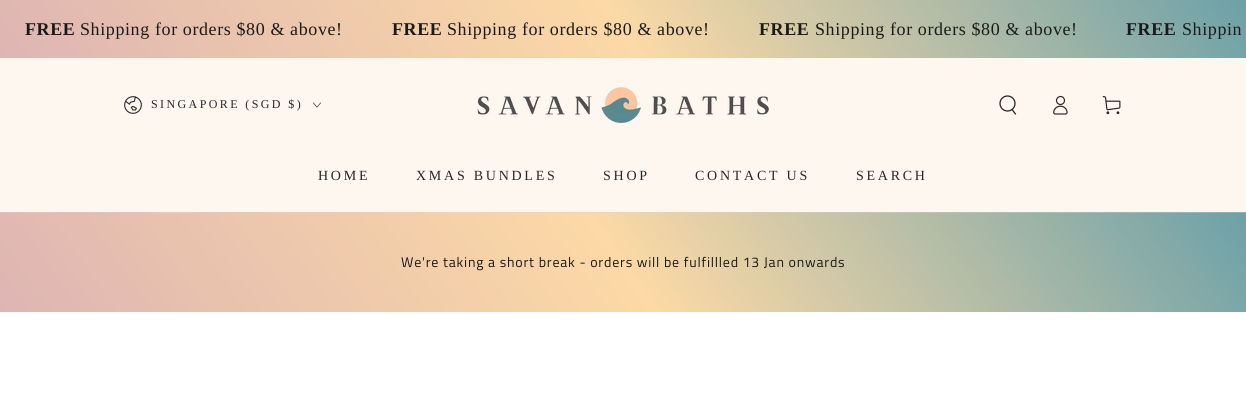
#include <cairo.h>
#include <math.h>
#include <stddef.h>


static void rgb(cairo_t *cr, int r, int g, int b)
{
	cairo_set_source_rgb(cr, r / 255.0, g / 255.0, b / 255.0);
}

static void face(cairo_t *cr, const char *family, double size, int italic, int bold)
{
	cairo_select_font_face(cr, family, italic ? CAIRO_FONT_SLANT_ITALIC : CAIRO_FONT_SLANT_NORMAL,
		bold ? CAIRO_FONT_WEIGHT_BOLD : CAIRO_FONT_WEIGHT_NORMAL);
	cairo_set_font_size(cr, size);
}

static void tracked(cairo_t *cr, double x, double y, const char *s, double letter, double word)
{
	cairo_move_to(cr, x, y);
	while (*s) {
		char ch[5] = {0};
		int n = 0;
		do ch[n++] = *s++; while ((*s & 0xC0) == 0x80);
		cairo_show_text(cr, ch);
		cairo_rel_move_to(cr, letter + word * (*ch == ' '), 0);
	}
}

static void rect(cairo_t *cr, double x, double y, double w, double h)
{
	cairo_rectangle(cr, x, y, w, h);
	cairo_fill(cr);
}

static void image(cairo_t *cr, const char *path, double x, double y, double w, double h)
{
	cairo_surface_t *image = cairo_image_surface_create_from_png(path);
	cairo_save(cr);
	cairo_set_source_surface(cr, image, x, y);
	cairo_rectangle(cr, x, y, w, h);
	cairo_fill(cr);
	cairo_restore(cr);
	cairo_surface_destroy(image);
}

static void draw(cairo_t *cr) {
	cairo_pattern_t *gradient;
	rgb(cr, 255, 255, 255);
	cairo_paint(cr);
	gradient = cairo_pattern_create_linear(1055, -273, 191, 331);
	cairo_pattern_add_color_stop_rgba(gradient, 0, 0.427, 0.631, 0.659, 1);
	cairo_pattern_add_color_stop_rgba(gradient, 0.5, 0.988, 0.851, 0.651, 1);
	cairo_pattern_add_color_stop_rgba(gradient, 1, 0.871, 0.71, 0.702, 1);
	cairo_set_source(cr, gradient);
	cairo_pattern_destroy(gradient);
	rect(cr, 0, 0, 1246, 58);
	face(cr, "Liberation Serif", 18, 0, 1);
	rgb(cr, 26, 27, 24);
	tracked(cr, 25, 35, "FREE", 0.6, 0);
	face(cr, "Liberation Serif", 18, 0, 0);
	tracked(cr, 80, 35, "Shipping for orders $80 & above!", 0.6, 0);
	face(cr, "Liberation Serif", 18, 0, 1);
	tracked(cr, 392, 35, "FREE", 0.6, 0);
	face(cr, "Liberation Serif", 18, 0, 0);
	tracked(cr, 447, 35, "Shipping for orders $80 & above!", 0.6, 0);
	face(cr, "Liberation Serif", 18, 0, 1);
	tracked(cr, 759, 35, "FREE", 0.6, 0);
	face(cr, "Liberation Serif", 18, 0, 0);
	tracked(cr, 815, 35, "Shipping for orders $80 & above!", 0.6, 0);
	face(cr, "Liberation Serif", 18, 0, 1);
	tracked(cr, 1126, 35, "FREE", 0.6, 0);
	face(cr, "Liberation Serif", 18, 0, 0);
	tracked(cr, 1182, 35, "Shippin", 0.6, 0);
	rgb(cr, 254, 247, 239);
	rect(cr, 0, 58, 1246, 154);
	image(cr, "image0.png", 124, 96, 18, 18);
	face(cr, "Liberation Serif", 12, 0, 0);
	rgb(cr, 40, 40, 40);
	tracked(cr, 151, 108, "SINGAPORE (SGD $)", 2.4, 0);
	image(cr, "image1.png", 313, 102, 8, 6);
	image(cr, "image2.png", 477, 87, 292, 37);
	cairo_arc(cr, 1007.5, 103.5, 7.5, 0, 2 * M_PI);
	cairo_set_line_width(cr, 1.3);
	cairo_stroke(cr);
	cairo_new_path(cr);
	cairo_move_to(cr, 1012, 109.5);
	cairo_line_to(cr, 1015.5, 114);
	cairo_set_line_cap(cr, CAIRO_LINE_CAP_ROUND);
	cairo_stroke(cr);
	image(cr, "image3.png", 1053, 95, 15, 20);
	image(cr, "image4.png", 1102, 96, 19, 19);
	face(cr, "Liberation Serif", 14, 0, 0);
	tracked(cr, 318, 180, "HOME", 2.75, 0);
	tracked(cr, 416, 180, "XMAS BUNDLES", 2.75, 0);
	tracked(cr, 603, 180, "SHOP", 2.75, 0);
	tracked(cr, 695, 180, "CONTACT US", 2.75, 0);
	tracked(cr, 856, 180, "SEARCH", 2.75, 0);
	gradient = cairo_pattern_create_linear(1065, -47, 181, 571);
	cairo_pattern_add_color_stop_rgba(gradient, 0, 0.427, 0.631, 0.659, 1);
	cairo_pattern_add_color_stop_rgba(gradient, 0.5, 0.988, 0.851, 0.651, 1);
	cairo_pattern_add_color_stop_rgba(gradient, 1, 0.871, 0.71, 0.702, 1);
	cairo_set_source(cr, gradient);
	cairo_pattern_destroy(gradient);
	rect(cr, 0, 213, 1246, 99);
	gradient = cairo_pattern_create_linear(1065, -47, 181, 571);
	cairo_pattern_add_color_stop_rgba(gradient, 0, 0.545, 0.694, 0.718, 1);
	cairo_pattern_add_color_stop_rgba(gradient, 0.5, 0.937, 0.847, 0.71, 1);
	cairo_pattern_add_color_stop_rgba(gradient, 1, 0.855, 0.749, 0.745, 1);
	cairo_set_source(cr, gradient);
	cairo_pattern_destroy(gradient);
	rect(cr, 0, 212, 1246, 1);
	face(cr, "Titillium Web", 14, 0, 0);
	rgb(cr, 26, 27, 24);
	tracked(cr, 401, 267, "We're taking a short break - orders will be fulfillled 13 Jan onwards", 0.78, 0);
}

int main(void) {
	cairo_surface_t *surface = cairo_image_surface_create(CAIRO_FORMAT_RGB24, 1246, 417);
	cairo_t *cr = cairo_create(surface);
	cairo_font_options_t *options = cairo_font_options_create();
	cairo_font_options_set_hint_metrics(options, CAIRO_HINT_METRICS_OFF);
	cairo_font_options_set_hint_style(options, CAIRO_HINT_STYLE_NONE);
	cairo_set_font_options(cr, options);
	cairo_set_miter_limit(cr, 4);
	draw(cr);
	cairo_surface_write_to_png(surface, "render.png");
	cairo_font_options_destroy(options);
	cairo_destroy(cr);
	cairo_surface_destroy(surface);
	return 0;
}
